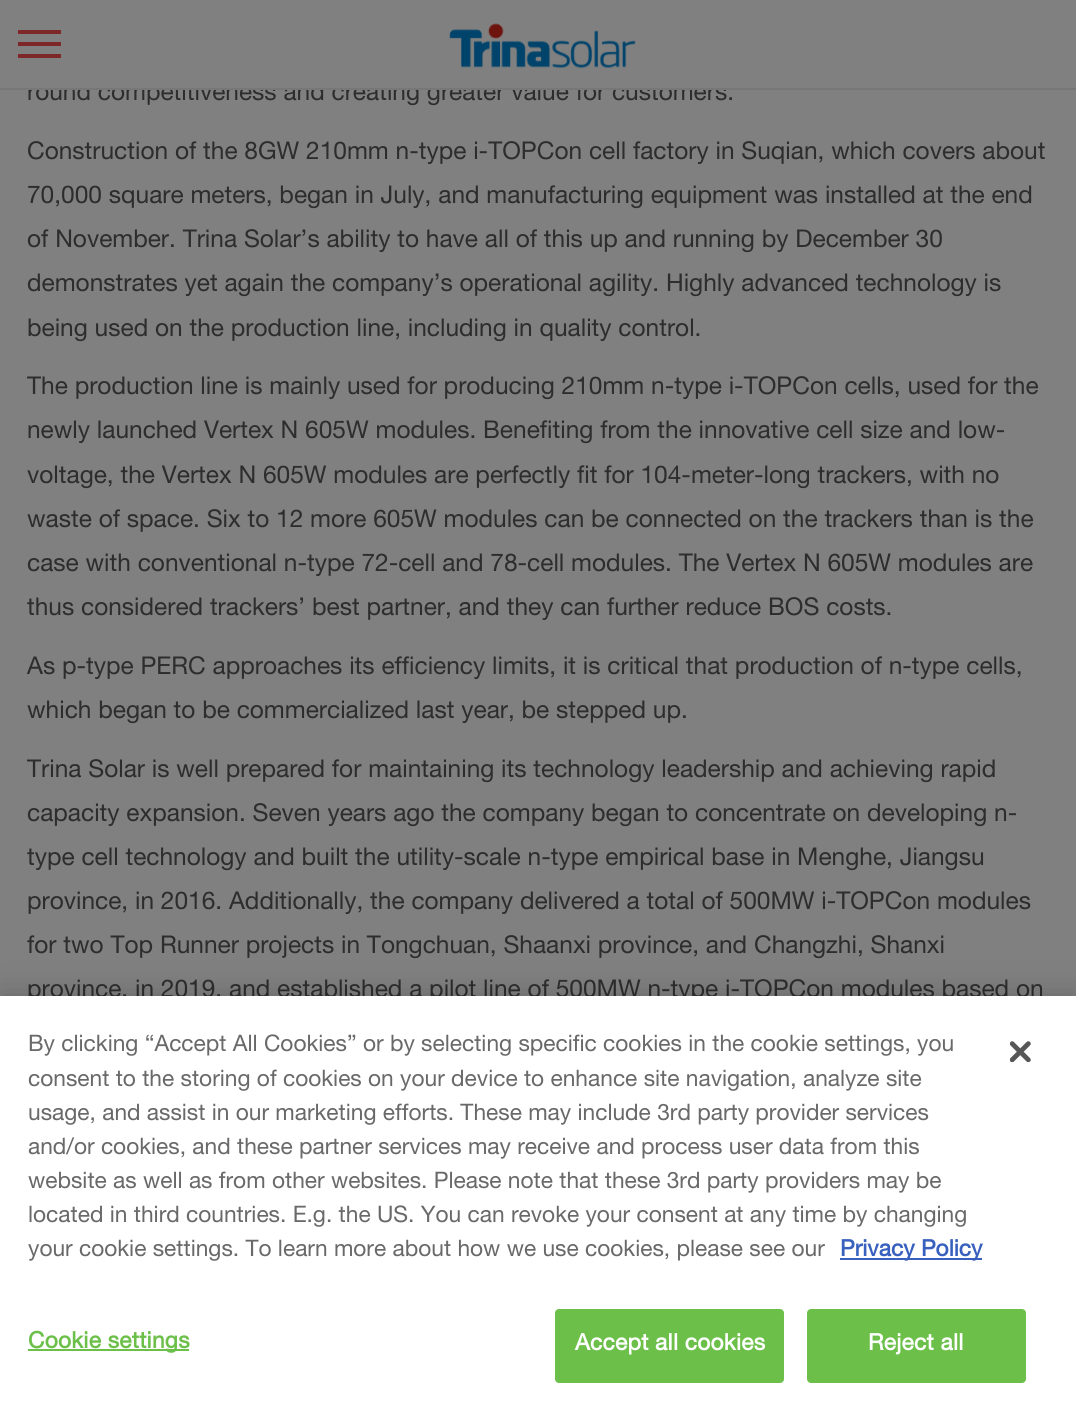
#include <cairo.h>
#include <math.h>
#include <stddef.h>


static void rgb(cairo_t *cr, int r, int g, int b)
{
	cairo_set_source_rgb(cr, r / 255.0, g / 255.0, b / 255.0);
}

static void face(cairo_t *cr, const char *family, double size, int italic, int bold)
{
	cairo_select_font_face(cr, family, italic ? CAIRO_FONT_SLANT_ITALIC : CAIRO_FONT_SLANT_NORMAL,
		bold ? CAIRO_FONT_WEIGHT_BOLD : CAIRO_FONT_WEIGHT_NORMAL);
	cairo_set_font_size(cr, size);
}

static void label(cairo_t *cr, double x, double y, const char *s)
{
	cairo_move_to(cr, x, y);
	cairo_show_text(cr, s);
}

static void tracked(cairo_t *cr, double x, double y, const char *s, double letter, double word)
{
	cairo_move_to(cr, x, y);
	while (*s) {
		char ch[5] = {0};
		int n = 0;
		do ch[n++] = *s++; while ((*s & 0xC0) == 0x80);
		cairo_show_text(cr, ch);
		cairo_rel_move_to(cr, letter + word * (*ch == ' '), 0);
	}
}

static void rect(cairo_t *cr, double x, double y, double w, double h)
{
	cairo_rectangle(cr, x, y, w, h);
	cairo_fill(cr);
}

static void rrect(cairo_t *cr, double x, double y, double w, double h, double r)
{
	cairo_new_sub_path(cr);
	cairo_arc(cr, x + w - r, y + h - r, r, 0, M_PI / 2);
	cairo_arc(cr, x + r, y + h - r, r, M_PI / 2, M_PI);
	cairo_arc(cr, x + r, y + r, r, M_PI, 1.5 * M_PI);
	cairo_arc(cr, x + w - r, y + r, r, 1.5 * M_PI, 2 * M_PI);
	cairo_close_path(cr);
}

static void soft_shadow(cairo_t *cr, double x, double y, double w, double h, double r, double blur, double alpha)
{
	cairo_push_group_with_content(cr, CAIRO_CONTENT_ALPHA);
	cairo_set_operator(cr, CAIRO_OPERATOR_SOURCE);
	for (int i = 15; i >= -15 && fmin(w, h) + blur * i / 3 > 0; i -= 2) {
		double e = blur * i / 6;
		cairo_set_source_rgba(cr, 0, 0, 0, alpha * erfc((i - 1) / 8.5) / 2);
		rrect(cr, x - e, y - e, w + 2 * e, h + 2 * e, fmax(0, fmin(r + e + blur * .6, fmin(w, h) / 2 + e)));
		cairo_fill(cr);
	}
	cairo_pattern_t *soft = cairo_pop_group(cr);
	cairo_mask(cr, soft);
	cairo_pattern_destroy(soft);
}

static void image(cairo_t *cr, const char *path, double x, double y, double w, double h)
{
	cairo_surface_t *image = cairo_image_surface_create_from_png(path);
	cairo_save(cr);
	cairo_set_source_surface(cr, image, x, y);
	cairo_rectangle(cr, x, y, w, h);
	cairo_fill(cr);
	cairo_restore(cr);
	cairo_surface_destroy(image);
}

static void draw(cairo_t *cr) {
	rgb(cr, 128, 128, 128);
	cairo_paint(cr);
	face(cr, "Helvetica Neue", 24.5, 0, 0);
	rgb(cr, 45, 45, 46);
	label(cr, 27, 100, "round competitiveness and creating greater value for customers.");
	rgb(cr, 128, 128, 128);
	rect(cr, 28, 82, 697, 6);
	rgb(cr, 119, 119, 119);
	rect(cr, 0, 88, 1076, 2);
	rgb(cr, 126, 39, 40);
	rect(cr, 18, 30, 43, 4);
	rect(cr, 18, 42, 43, 4);
	rect(cr, 18, 54, 43, 4);
	image(cr, "image0.png", 449, 23, 187, 46);
	rgb(cr, 45, 45, 46);
	label(cr, 27, 159, "Construction of the 8GW 210mm n-type i-TOPCon cell factory in Suqian, which covers about");
	label(cr, 27, 203, "70,000 square meters, began in July, and manufacturing equipment was installed at the end");
	label(cr, 27, 247, "of November. Trina Solar’s ability to have all of this up and running by December 30");
	label(cr, 27, 291, "demonstrates yet again the company’s operational agility. Highly advanced technology is");
	label(cr, 27, 336, "being used on the production line, including in quality control.");
	label(cr, 27, 394, "The production line is mainly used for producing 210mm n-type i-TOPCon cells, used for the");
	label(cr, 27, 438, "newly launched Vertex N 605W modules. Benefiting from the innovative cell size and low-");
	label(cr, 27, 483, "voltage, the Vertex N 605W modules are perfectly fit for 104-meter-long trackers, with no");
	label(cr, 27, 527, "waste of space. Six to 12 more 605W modules can be connected on the trackers than is the");
	label(cr, 27, 571, "case with conventional n-type 72-cell and 78-cell modules. The Vertex N 605W modules are");
	label(cr, 27, 615, "thus considered trackers’ best partner, and they can further reduce BOS costs.");
	label(cr, 27, 674, "As p-type PERC approaches its efficiency limits, it is critical that production of n-type cells,");
	label(cr, 27, 718, "which began to be commercialized last year, be stepped up.");
	label(cr, 27, 777, "Trina Solar is well prepared for maintaining its technology leadership and achieving rapid");
	label(cr, 27, 821, "capacity expansion. Seven years ago the company began to concentrate on developing n-");
	label(cr, 27, 865, "type cell technology and built the utility-scale n-type empirical base in Menghe, Jiangsu");
	label(cr, 27, 909, "province, in 2016. Additionally, the company delivered a total of 500MW i-TOPCon modules");
	label(cr, 27, 953, "for two Top Runner projects in Tongchuan, Shaanxi province, and Changzhi, Shanxi");
	label(cr, 27, 997, "province, in 2019, and established a pilot line of 500MW n-type i-TOPCon modules based on");
	rgb(cr, 0, 0, 0);
	soft_shadow(cr, 0, 996, 1076, 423, 0, 16, 0.2);
	rgb(cr, 255, 255, 255);
	rect(cr, 0, 996, 1076, 422);
	face(cr, "Helvetica Neue", 22.75, 0, 0);
	rgb(cr, 105, 105, 105);
	label(cr, 28, 1051, "By clicking “Accept All Cookies” or by selecting specific cookies in the cookie settings, you");
	label(cr, 28, 1086, "consent to the storing of cookies on your device to enhance site navigation, analyze site");
	label(cr, 28, 1120, "usage, and assist in our marketing efforts. These may include 3rd party provider services");
	label(cr, 28, 1154, "and/or cookies, and these partner services may receive and process user data from this");
	label(cr, 28, 1188, "website as well as from other websites. Please note that these 3rd party providers may be");
	label(cr, 28, 1222, "located in third countries. E.g. the US. You can revoke your consent at any time by changing");
	label(cr, 28, 1256, "your cookie settings. To learn more about how we use cookies, please see our");
	rgb(cr, 56, 96, 190);
	rect(cr, 840, 1258, 142, 2);
	face(cr, "Helvetica Neue", 22.75, 0, 1);
	label(cr, 840, 1256, "Privacy Policy");
	rgb(cr, 108, 192, 74);
	rect(cr, 28, 1349, 161, 2);
	tracked(cr, 28, 1348, "Cookie settings", 0.25, 0);
	rrect(cr, 556, 1310, 227, 72, 3);
	cairo_fill_preserve(cr);
	cairo_stroke(cr);
	rgb(cr, 255, 255, 255);
	tracked(cr, 575, 1350, "Accept all cookies", 0.25, 0);
	rgb(cr, 108, 192, 74);
	rrect(cr, 808, 1310, 217, 72, 3);
	cairo_fill_preserve(cr);
	cairo_stroke(cr);
	rgb(cr, 255, 255, 255);
	tracked(cr, 868, 1350, "Reject all", 0.25, 0);
	image(cr, "image1.png", 1010, 1041, 21, 21);
}

int main(void) {
	cairo_surface_t *surface = cairo_image_surface_create(CAIRO_FORMAT_RGB24, 1076, 1418);
	cairo_t *cr = cairo_create(surface);
	cairo_font_options_t *options = cairo_font_options_create();
	cairo_font_options_set_hint_metrics(options, CAIRO_HINT_METRICS_OFF);
	cairo_font_options_set_hint_style(options, CAIRO_HINT_STYLE_NONE);
	cairo_set_font_options(cr, options);
	cairo_set_miter_limit(cr, 4);
	draw(cr);
	cairo_surface_write_to_png(surface, "render.png");
	cairo_font_options_destroy(options);
	cairo_destroy(cr);
	cairo_surface_destroy(surface);
	return 0;
}
